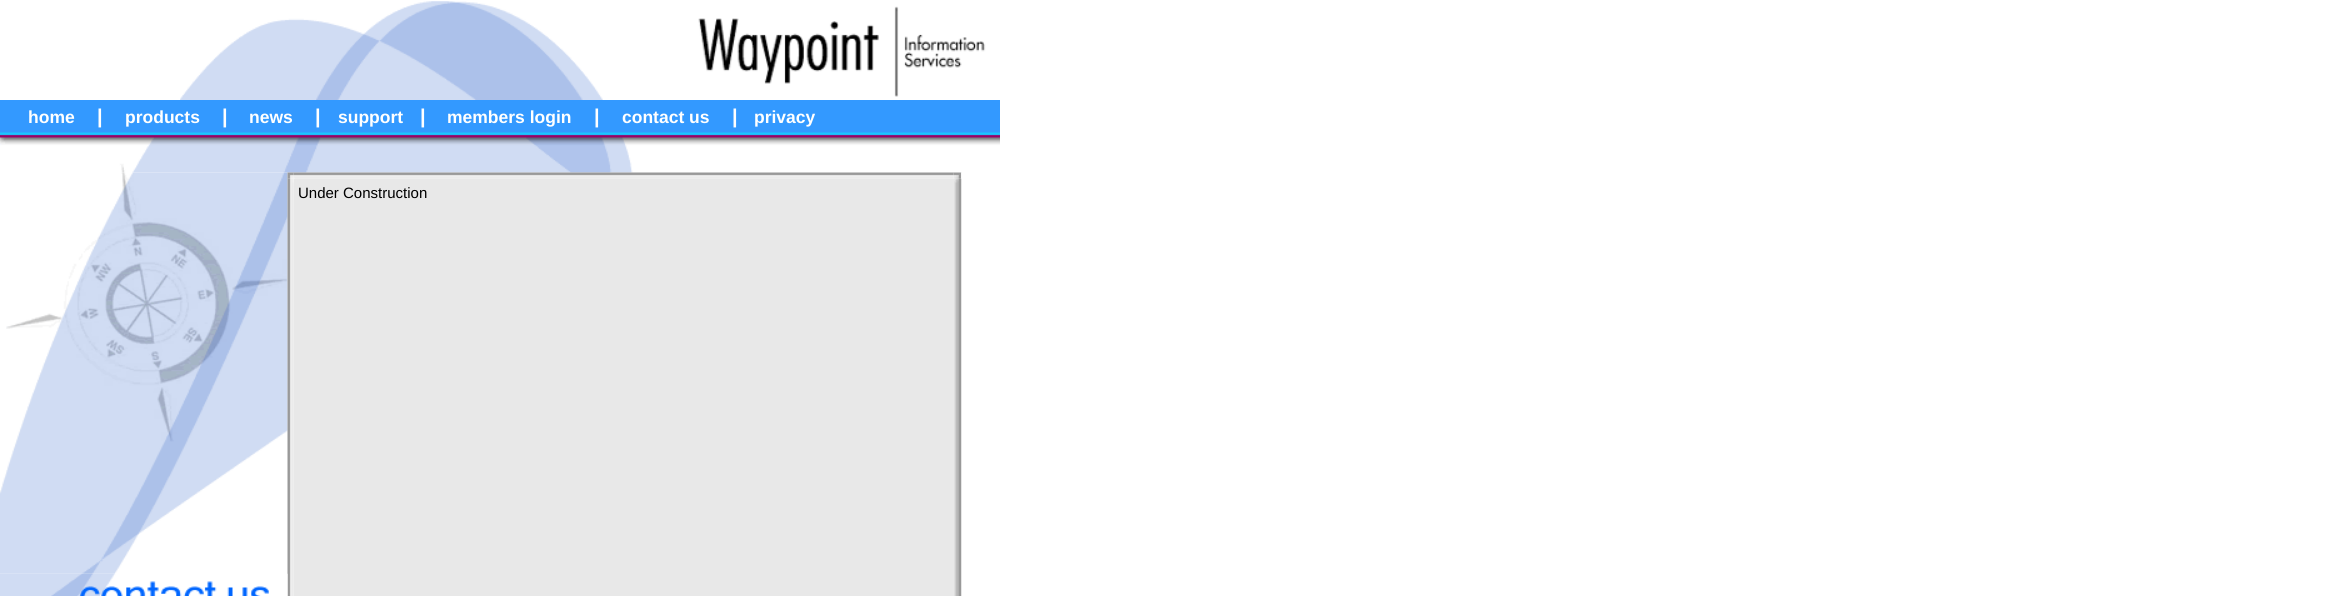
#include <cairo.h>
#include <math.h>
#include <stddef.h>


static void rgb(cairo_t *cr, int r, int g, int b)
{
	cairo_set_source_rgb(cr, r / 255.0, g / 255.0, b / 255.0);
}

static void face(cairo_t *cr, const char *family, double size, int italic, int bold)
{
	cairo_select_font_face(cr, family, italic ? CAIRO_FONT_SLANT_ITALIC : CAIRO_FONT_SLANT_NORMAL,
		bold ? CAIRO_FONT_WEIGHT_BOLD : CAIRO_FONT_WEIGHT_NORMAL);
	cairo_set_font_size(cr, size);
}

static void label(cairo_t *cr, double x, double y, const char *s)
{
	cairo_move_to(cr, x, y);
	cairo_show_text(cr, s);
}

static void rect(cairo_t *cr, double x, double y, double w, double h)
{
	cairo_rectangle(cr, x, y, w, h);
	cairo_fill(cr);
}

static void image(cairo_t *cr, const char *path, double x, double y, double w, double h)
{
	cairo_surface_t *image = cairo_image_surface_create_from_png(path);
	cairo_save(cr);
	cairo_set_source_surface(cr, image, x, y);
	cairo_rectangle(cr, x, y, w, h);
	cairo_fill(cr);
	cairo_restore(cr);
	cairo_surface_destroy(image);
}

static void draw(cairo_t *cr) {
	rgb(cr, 255, 255, 255);
	cairo_paint(cr);
	image(cr, "image0.png", 180, 1, 423, 99);
	image(cr, "image1.png", 698, 6, 288, 91);
	rgb(cr, 51, 153, 255);
	rect(cr, 0, 100, 1000, 33);
	face(cr, "Liberation Sans", 17.5, 0, 1);
	rgb(cr, 255, 255, 255);
	label(cr, 28, 123, "home");
	face(cr, "Liberation Sans", 20, 0, 1);
	label(cr, 97, 123, "|");
	face(cr, "Liberation Sans", 17.5, 0, 1);
	label(cr, 125, 123, "products");
	face(cr, "Liberation Sans", 20, 0, 1);
	label(cr, 222, 123, "|");
	face(cr, "Liberation Sans", 17.5, 0, 1);
	label(cr, 249, 123, "news");
	face(cr, "Liberation Sans", 20, 0, 1);
	label(cr, 315, 123, "|");
	face(cr, "Liberation Sans", 17.5, 0, 1);
	label(cr, 338, 123, "support");
	face(cr, "Liberation Sans", 20, 0, 1);
	label(cr, 420, 123, "|");
	face(cr, "Liberation Sans", 17.5, 0, 1);
	label(cr, 447, 123, "members login");
	face(cr, "Liberation Sans", 20, 0, 1);
	label(cr, 594, 123, "|");
	face(cr, "Liberation Sans", 17.5, 0, 1);
	label(cr, 622, 123, "contact us");
	face(cr, "Liberation Sans", 20, 0, 1);
	label(cr, 732, 123, "|");
	face(cr, "Liberation Sans", 17.5, 0, 1);
	label(cr, 754, 123, "privacy");
	image(cr, "image2.png", 0, 132, 1000, 41);
	image(cr, "image3.png", 0, 172, 288, 402);
	image(cr, "image4.png", 287, 172, 7, 7);
	image(cr, "image5.png", 293, 172, 661, 7);
	image(cr, "image6.png", 953, 172, 9, 7);
	image(cr, "image7.png", 961, 172, 1, 7);
	image(cr, "image8.png", 0, 573, 269, 23);
	image(cr, "image10.png", 287, 178, 7, 418);
	image(cr, "image9.png", 287, 573, 1, 23);
	rgb(cr, 232, 232, 232);
	rect(cr, 294, 179, 660, 417);
	image(cr, "image11.png", 954, 178, 8, 418);
	face(cr, "Liberation Sans", 15, 0, 0);
	rgb(cr, 0, 0, 0);
	label(cr, 298, 198, "Under Construction");
}

int main(void) {
	cairo_surface_t *surface = cairo_image_surface_create(CAIRO_FORMAT_RGB24, 2339, 596);
	cairo_t *cr = cairo_create(surface);
	cairo_font_options_t *options = cairo_font_options_create();
	cairo_font_options_set_hint_metrics(options, CAIRO_HINT_METRICS_OFF);
	cairo_font_options_set_hint_style(options, CAIRO_HINT_STYLE_NONE);
	cairo_set_font_options(cr, options);
	cairo_set_miter_limit(cr, 4);
	draw(cr);
	cairo_surface_write_to_png(surface, "render.png");
	cairo_font_options_destroy(options);
	cairo_destroy(cr);
	cairo_surface_destroy(surface);
	return 0;
}
